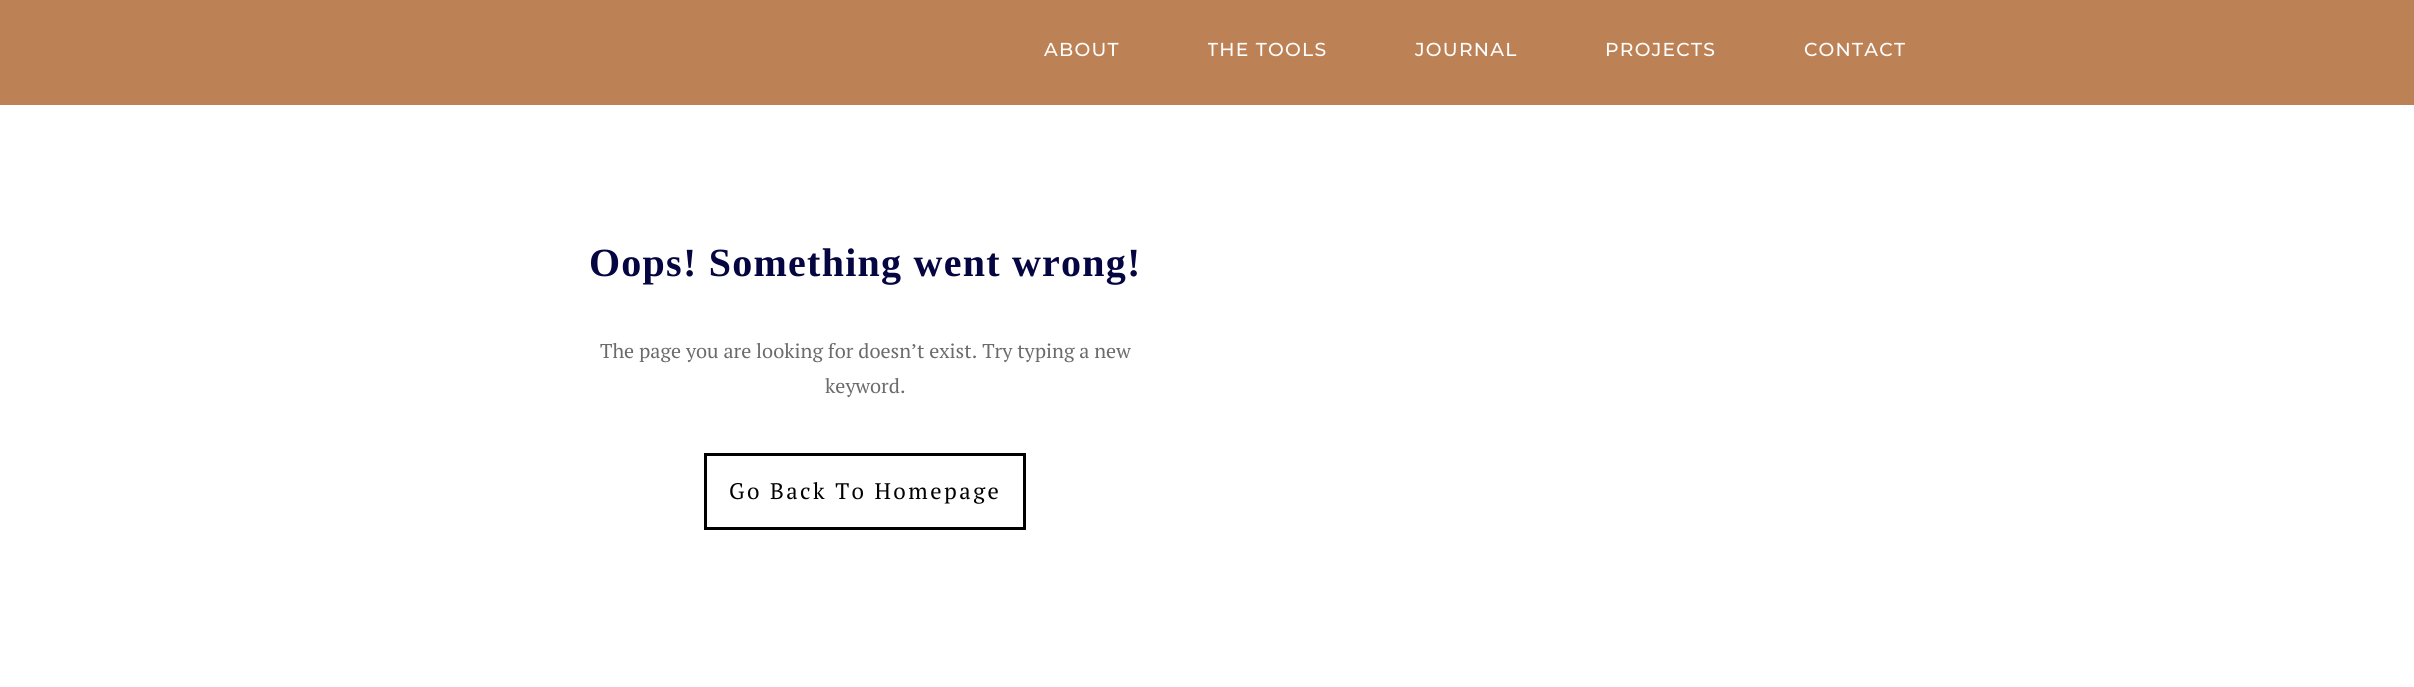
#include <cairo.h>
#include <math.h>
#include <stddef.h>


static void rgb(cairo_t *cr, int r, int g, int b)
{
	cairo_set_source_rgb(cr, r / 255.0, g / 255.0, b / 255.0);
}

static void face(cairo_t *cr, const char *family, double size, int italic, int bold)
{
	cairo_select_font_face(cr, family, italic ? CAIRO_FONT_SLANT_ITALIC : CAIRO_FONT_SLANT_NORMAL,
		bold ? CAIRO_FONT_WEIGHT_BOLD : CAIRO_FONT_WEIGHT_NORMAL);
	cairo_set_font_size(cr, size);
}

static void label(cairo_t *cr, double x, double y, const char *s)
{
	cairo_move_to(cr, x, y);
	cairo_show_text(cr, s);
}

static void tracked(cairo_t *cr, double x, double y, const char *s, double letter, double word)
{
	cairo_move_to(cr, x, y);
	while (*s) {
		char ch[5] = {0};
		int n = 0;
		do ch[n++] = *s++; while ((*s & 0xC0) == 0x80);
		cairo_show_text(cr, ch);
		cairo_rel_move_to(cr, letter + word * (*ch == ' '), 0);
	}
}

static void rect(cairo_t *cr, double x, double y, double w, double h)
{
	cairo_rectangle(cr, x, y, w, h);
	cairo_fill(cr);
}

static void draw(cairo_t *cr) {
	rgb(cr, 255, 255, 255);
	cairo_paint(cr);
	rgb(cr, 189, 129, 86);
	rect(cr, 0, 0, 2414, 105);
	face(cr, "Montserrat Medium", 18.75, 0, 0);
	rgb(cr, 255, 255, 255);
	tracked(cr, 1044, 56, "ABOUT", 1.25, 0);
	cairo_save(cr);
	cairo_rectangle(cr, 1208, 39, 120, 21);
	cairo_clip(cr);
	tracked(cr, 1207, 56, "THE TOOLS", 1.25, 0);
	cairo_restore(cr);
	tracked(cr, 1415, 56, "JOURNAL", 1.25, 0);
	tracked(cr, 1605, 56, "PROJECTS", 1.25, 0);
	tracked(cr, 1804, 56, "CONTACT", 1.25, 0);
	face(cr, "Liberation Serif", 40, 0, 1);
	rgb(cr, 5, 5, 65);
	tracked(cr, 589, 276, "Oops! Something went wrong!", 1.25, 0);
	face(cr, "PT Serif", 20, 0, 0);
	rgb(cr, 106, 107, 108);
	label(cr, 600, 358, "The page you are looking for doesn’t exist. Try typing a new");
	label(cr, 825, 393, "keyword.");
	cairo_rectangle(cr, 705.5, 454.5, 319, 74);
	rgb(cr, 0, 0, 0);
	cairo_set_line_width(cr, 3);
	cairo_stroke(cr);
	face(cr, "PT Serif", 22.5, 0, 0);
	tracked(cr, 729, 499, "Go Back To Homepage", 2.5, 0);
}

int main(void) {
	cairo_surface_t *surface = cairo_image_surface_create(CAIRO_FORMAT_RGB24, 2414, 687);
	cairo_t *cr = cairo_create(surface);
	cairo_font_options_t *options = cairo_font_options_create();
	cairo_font_options_set_hint_metrics(options, CAIRO_HINT_METRICS_OFF);
	cairo_font_options_set_hint_style(options, CAIRO_HINT_STYLE_NONE);
	cairo_set_font_options(cr, options);
	cairo_set_miter_limit(cr, 4);
	draw(cr);
	cairo_surface_write_to_png(surface, "render.png");
	cairo_font_options_destroy(options);
	cairo_destroy(cr);
	cairo_surface_destroy(surface);
	return 0;
}
